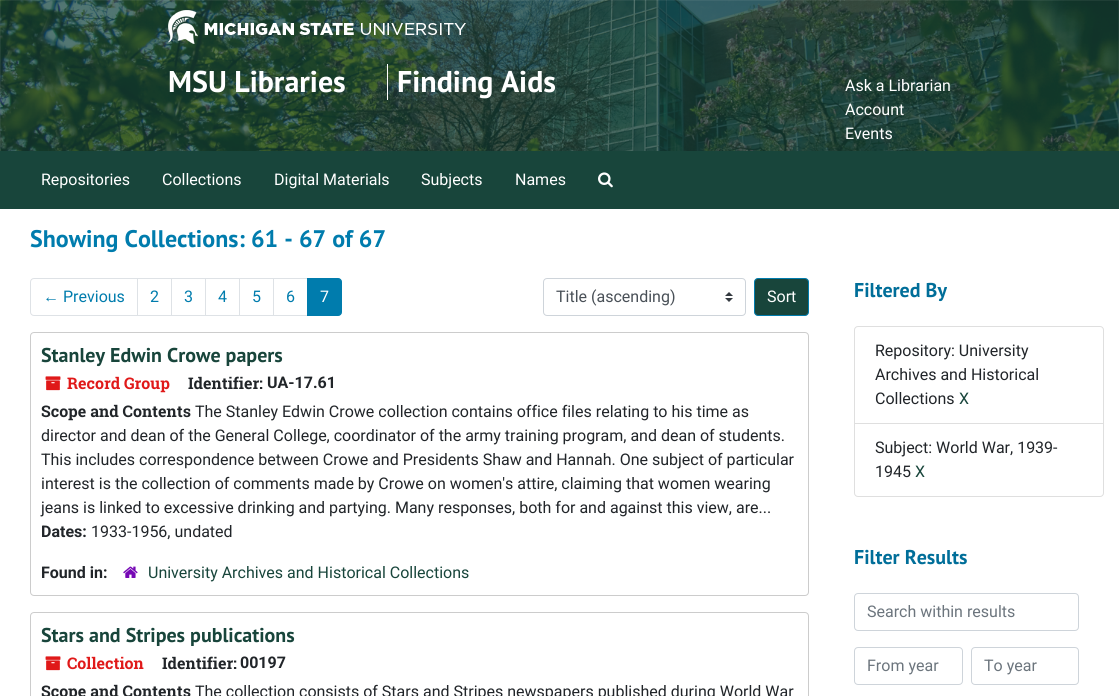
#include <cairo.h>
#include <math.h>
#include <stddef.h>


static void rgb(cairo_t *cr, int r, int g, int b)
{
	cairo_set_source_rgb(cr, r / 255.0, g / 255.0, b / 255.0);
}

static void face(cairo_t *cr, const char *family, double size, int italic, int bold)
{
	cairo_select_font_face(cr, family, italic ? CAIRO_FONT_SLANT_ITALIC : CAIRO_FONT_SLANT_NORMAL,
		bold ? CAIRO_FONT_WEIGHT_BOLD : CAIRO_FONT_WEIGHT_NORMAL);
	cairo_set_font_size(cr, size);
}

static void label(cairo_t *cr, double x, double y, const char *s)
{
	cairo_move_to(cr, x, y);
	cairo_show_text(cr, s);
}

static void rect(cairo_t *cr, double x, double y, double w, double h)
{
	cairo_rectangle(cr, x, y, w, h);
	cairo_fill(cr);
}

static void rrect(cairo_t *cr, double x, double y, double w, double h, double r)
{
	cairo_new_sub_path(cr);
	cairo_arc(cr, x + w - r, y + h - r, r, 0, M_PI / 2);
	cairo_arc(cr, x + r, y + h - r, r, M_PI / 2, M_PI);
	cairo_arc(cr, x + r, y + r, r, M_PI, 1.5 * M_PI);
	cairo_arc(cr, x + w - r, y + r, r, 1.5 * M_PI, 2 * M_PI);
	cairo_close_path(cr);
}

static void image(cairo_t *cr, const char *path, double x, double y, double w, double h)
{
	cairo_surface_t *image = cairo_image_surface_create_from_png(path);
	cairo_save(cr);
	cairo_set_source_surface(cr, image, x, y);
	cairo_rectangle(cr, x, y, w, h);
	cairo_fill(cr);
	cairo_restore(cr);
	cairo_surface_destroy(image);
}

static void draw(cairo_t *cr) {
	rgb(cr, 255, 255, 255);
	cairo_paint(cr);
	image(cr, "image0.png", 0, 0, 1119, 151);
	image(cr, "image1.png", 168, 10, 298, 34);
	rgb(cr, 255, 255, 255);
	rect(cr, 387, 64, 1, 36);
	face(cr, "PT Sans", 30, 0, 1);
	label(cr, 168, 92, "MSU Libraries");
	label(cr, 397, 92, "Finding Aids");
	face(cr, "Roboto", 16, 0, 0);
	label(cr, 845, 91, "Ask a Librarian");
	label(cr, 845, 115, "Account");
	label(cr, 845, 139, "Events");
	cairo_rectangle(cr, 0.5, 151.5, 1118, 57);
	rgb(cr, 24, 69, 59);
	cairo_set_line_width(cr, 1);
	cairo_stroke(cr);
	rect(cr, 1, 152, 1117, 56);
	rgb(cr, 255, 255, 255);
	label(cr, 41, 185, "Repositories");
	label(cr, 162, 185, "Collections");
	label(cr, 274, 185, "Digital Materials");
	label(cr, 421, 185, "Subjects");
	label(cr, 515, 185, "Names");
	image(cr, "image2.png", 598, 172, 15, 16);
	face(cr, "PT Sans", 24, 0, 1);
	rgb(cr, 0, 124, 173);
	label(cr, 30, 247, "Showing Collections: 61 - 67 of 67");
	cairo_new_path(cr);
	cairo_move_to(cr, 34, 278.5);
	cairo_line_to(cr, 137.5, 278.5);
	cairo_line_to(cr, 137.5, 315.5);
	cairo_line_to(cr, 34, 315.5);
	cairo_curve_to(cr, 32, 315.5, 30.5, 314, 30.5, 312);
	cairo_line_to(cr, 30.5, 282);
	cairo_curve_to(cr, 30.5, 280, 32, 278.5, 34, 278.5);
	cairo_close_path(cr);
	rgb(cr, 222, 226, 230);
	cairo_stroke(cr);
	face(cr, "Liberation Sans", 16, 0, 0);
	rgb(cr, 0, 124, 173);
	label(cr, 43, 302, "←");
	face(cr, "Roboto", 16, 0, 0);
	label(cr, 63, 302, "Previous");
	cairo_rectangle(cr, 137.5, 278.5, 34, 37);
	rgb(cr, 222, 226, 230);
	cairo_stroke(cr);
	rgb(cr, 0, 124, 173);
	label(cr, 150, 302, "2");
	cairo_rectangle(cr, 171.5, 278.5, 34, 37);
	rgb(cr, 222, 226, 230);
	cairo_stroke(cr);
	rgb(cr, 0, 124, 173);
	label(cr, 184, 302, "3");
	cairo_rectangle(cr, 205.5, 278.5, 34, 37);
	rgb(cr, 222, 226, 230);
	cairo_stroke(cr);
	rgb(cr, 0, 124, 173);
	label(cr, 218, 302, "4");
	cairo_rectangle(cr, 239.5, 278.5, 34, 37);
	rgb(cr, 222, 226, 230);
	cairo_stroke(cr);
	rgb(cr, 0, 124, 173);
	label(cr, 252, 302, "5");
	cairo_rectangle(cr, 273.5, 278.5, 34, 37);
	rgb(cr, 222, 226, 230);
	cairo_stroke(cr);
	rgb(cr, 0, 124, 173);
	label(cr, 286, 302, "6");
	cairo_new_path(cr);
	cairo_move_to(cr, 307.5, 278.5);
	cairo_line_to(cr, 338, 278.5);
	cairo_curve_to(cr, 340, 278.5, 341.5, 280, 341.5, 282);
	cairo_line_to(cr, 341.5, 312);
	cairo_curve_to(cr, 341.5, 314, 340, 315.5, 338, 315.5);
	cairo_line_to(cr, 307.5, 315.5);
	cairo_close_path(cr);
	cairo_fill_preserve(cr);
	cairo_stroke(cr);
	rgb(cr, 255, 255, 255);
	label(cr, 320, 302, "7");
	image(cr, "image3.png", 725, 292, 8, 10);
	rrect(cr, 543.5, 278.5, 202, 37, 3.5);
	rgb(cr, 206, 212, 218);
	cairo_stroke(cr);
	rgb(cr, 73, 80, 87);
	label(cr, 556, 302, "Title (ascending)");
	rgb(cr, 24, 69, 59);
	rrect(cr, 754.5, 278.5, 54, 37, 3.5);
	cairo_fill_preserve(cr);
	rgb(cr, 0, 124, 173);
	cairo_stroke(cr);
	rgb(cr, 255, 255, 255);
	label(cr, 767, 302, "Sort");
	rrect(cr, 30.5, 332.5, 778, 263, 3.5);
	rgb(cr, 204, 204, 204);
	cairo_stroke(cr);
	face(cr, "PT Sans", 20, 0, 1);
	rgb(cr, 24, 69, 59);
	label(cr, 41, 362, "Stanley Edwin Crowe papers");
	image(cr, "image4.png", 45, 376, 16, 15);
	face(cr, "Roboto Slab", 16, 0, 1);
	rgb(cr, 224, 25, 25);
	label(cr, 67, 389, "Record Group");
	rgb(cr, 33, 37, 41);
	label(cr, 188, 389, "Identifier:");
	face(cr, "Roboto", 16, 0, 1);
	label(cr, 267, 388, "UA-17.61");
	face(cr, "Roboto Slab", 16, 0, 1);
	label(cr, 41, 417, "Scope and Contents");
	face(cr, "Roboto", 16, 0, 0);
	label(cr, 195, 417, "The Stanley Edwin Crowe collection contains office files relating to his time as");
	label(cr, 41, 441, "director and dean of the General College, coordinator of the army training program, and dean of students.");
	label(cr, 41, 465, "This includes correspondence between Crowe and Presidents Shaw and Hannah. One subject of particular");
	label(cr, 41, 489, "interest is the collection of comments made by Crowe on women's attire, claiming that women wearing");
	label(cr, 41, 513, "jeans is linked to excessive drinking and partying. Many responses, both for and against this view, are...");
	face(cr, "Roboto", 16, 0, 1);
	label(cr, 41, 537, "Dates:");
	face(cr, "Roboto", 16, 0, 0);
	label(cr, 91, 537, "1933-1956, undated");
	face(cr, "Roboto", 16, 0, 1);
	label(cr, 41, 578, "Found in:");
	image(cr, "image5.png", 123, 566, 15, 12);
	face(cr, "Roboto", 16, 0, 0);
	rgb(cr, 24, 69, 59);
	label(cr, 148, 578, "University Archives and Historical Collections");
	rrect(cr, 30.5, 612.5, 778, 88, 3.5);
	rgb(cr, 204, 204, 204);
	cairo_stroke(cr);
	face(cr, "PT Sans", 20, 0, 1);
	rgb(cr, 24, 69, 59);
	label(cr, 41, 642, "Stars and Stripes publications");
	image(cr, "image4.png", 45, 656, 16, 15);
	face(cr, "Roboto Slab", 16, 0, 1);
	rgb(cr, 224, 25, 25);
	label(cr, 67, 669, "Collection");
	rgb(cr, 33, 37, 41);
	label(cr, 162, 669, "Identifier:");
	face(cr, "Roboto", 16, 0, 1);
	label(cr, 240, 668, "00197");
	face(cr, "Roboto Slab", 16, 0, 1);
	label(cr, 41, 697, "Scope and Contents");
	face(cr, "Roboto", 16, 0, 0);
	label(cr, 195, 697, "The collection consists of Stars and Stripes newspapers published during World War");
	face(cr, "PT Sans", 20, 0, 1);
	rgb(cr, 0, 110, 153);
	label(cr, 854, 297, "Filtered By");
	cairo_new_path(cr);
	cairo_move_to(cr, 858, 326.5);
	cairo_line_to(cr, 1100, 326.5);
	cairo_curve_to(cr, 1102, 326.5, 1103.5, 328, 1103.5, 330);
	cairo_line_to(cr, 1103.5, 423.5);
	cairo_line_to(cr, 854.5, 423.5);
	cairo_line_to(cr, 854.5, 330);
	cairo_curve_to(cr, 854.5, 328, 856, 326.5, 858, 326.5);
	cairo_close_path(cr);
	rgb(cr, 223, 223, 223);
	cairo_stroke(cr);
	face(cr, "Roboto", 16, 0, 0);
	rgb(cr, 33, 37, 41);
	label(cr, 875, 356, "Repository: University");
	label(cr, 875, 380, "Archives and Historical");
	label(cr, 875, 404, "Collections");
	rgb(cr, 24, 69, 59);
	label(cr, 959, 404, "X");
	rgb(cr, 255, 255, 255);
	cairo_new_path(cr);
	cairo_move_to(cr, 854.5, 423.5);
	cairo_line_to(cr, 1103.5, 423.5);
	cairo_line_to(cr, 1103.5, 493);
	cairo_curve_to(cr, 1103.5, 495, 1102, 496.5, 1100, 496.5);
	cairo_line_to(cr, 858, 496.5);
	cairo_curve_to(cr, 856, 496.5, 854.5, 495, 854.5, 493);
	cairo_close_path(cr);
	cairo_fill_preserve(cr);
	rgb(cr, 223, 223, 223);
	cairo_stroke(cr);
	rgb(cr, 33, 37, 41);
	label(cr, 875, 453, "Subject: World War, 1939-");
	label(cr, 875, 477, "1945");
	rgb(cr, 24, 69, 59);
	label(cr, 915, 477, "X");
	face(cr, "PT Sans", 20, 0, 1);
	rgb(cr, 0, 110, 153);
	label(cr, 854, 564, "Filter Results");
	rrect(cr, 854.5, 593.5, 224, 37, 3.5);
	rgb(cr, 206, 212, 218);
	cairo_stroke(cr);
	face(cr, "Roboto", 16, 0, 0);
	rgb(cr, 108, 117, 125);
	label(cr, 867, 617, "Search within results");
	rrect(cr, 854.5, 647.5, 108, 37, 3.5);
	rgb(cr, 206, 212, 218);
	cairo_stroke(cr);
	rgb(cr, 108, 117, 125);
	label(cr, 867, 671, "From year");
	rrect(cr, 971.5, 647.5, 107, 37, 3.5);
	rgb(cr, 206, 212, 218);
	cairo_stroke(cr);
	rgb(cr, 108, 117, 125);
	label(cr, 984, 671, "To year");
}

int main(void) {
	cairo_surface_t *surface = cairo_image_surface_create(CAIRO_FORMAT_RGB24, 1119, 696);
	cairo_t *cr = cairo_create(surface);
	cairo_font_options_t *options = cairo_font_options_create();
	cairo_font_options_set_hint_metrics(options, CAIRO_HINT_METRICS_OFF);
	cairo_font_options_set_hint_style(options, CAIRO_HINT_STYLE_NONE);
	cairo_set_font_options(cr, options);
	cairo_set_miter_limit(cr, 4);
	draw(cr);
	cairo_surface_write_to_png(surface, "render.png");
	cairo_font_options_destroy(options);
	cairo_destroy(cr);
	cairo_surface_destroy(surface);
	return 0;
}
